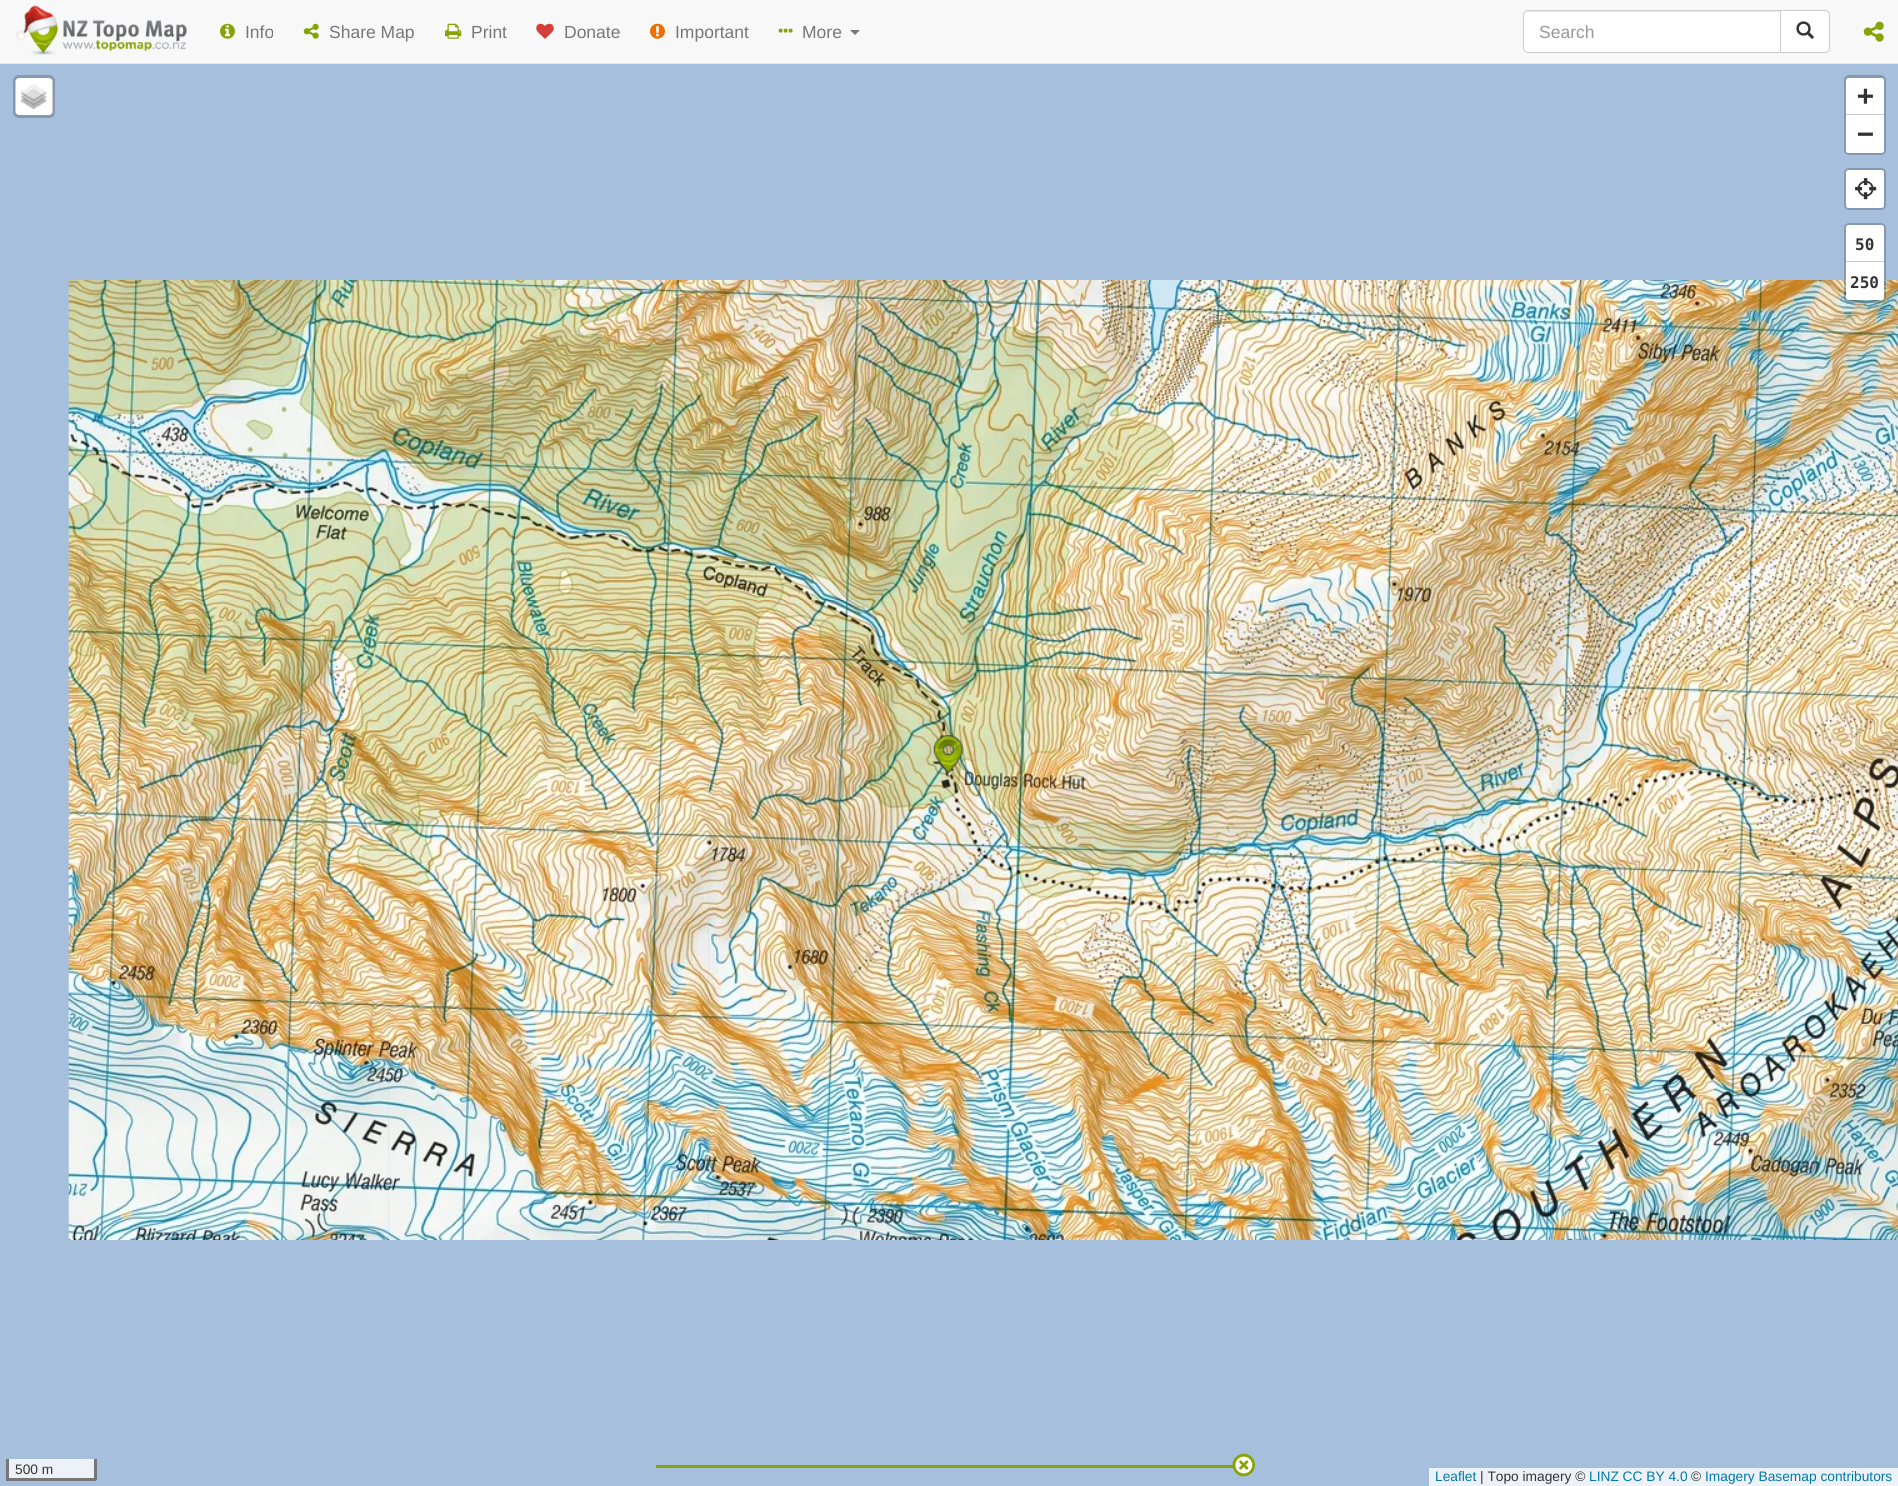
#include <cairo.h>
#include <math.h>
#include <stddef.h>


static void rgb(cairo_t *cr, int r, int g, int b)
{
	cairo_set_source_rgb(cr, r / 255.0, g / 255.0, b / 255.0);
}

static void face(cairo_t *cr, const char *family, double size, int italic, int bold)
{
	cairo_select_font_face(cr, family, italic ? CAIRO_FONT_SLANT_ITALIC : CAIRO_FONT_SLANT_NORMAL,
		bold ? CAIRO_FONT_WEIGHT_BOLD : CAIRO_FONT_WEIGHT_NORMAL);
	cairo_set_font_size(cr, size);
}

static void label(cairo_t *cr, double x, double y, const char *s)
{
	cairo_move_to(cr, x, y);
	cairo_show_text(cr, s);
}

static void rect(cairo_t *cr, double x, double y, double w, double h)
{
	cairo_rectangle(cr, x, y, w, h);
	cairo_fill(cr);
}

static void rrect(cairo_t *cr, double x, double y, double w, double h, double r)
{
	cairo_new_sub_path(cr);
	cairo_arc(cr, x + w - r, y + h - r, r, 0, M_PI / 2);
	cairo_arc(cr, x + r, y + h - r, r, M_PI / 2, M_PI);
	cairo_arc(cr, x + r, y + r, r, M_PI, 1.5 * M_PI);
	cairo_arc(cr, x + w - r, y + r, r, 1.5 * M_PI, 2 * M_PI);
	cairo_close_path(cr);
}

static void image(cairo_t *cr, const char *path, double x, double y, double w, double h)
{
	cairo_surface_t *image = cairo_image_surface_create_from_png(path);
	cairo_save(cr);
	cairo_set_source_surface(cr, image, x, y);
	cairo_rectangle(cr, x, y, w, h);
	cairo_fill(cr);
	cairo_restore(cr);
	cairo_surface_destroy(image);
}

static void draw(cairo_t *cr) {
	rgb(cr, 165, 191, 221);
	cairo_paint(cr);
	rgb(cr, 248, 248, 248);
	rect(cr, 0, 0, 1898, 63);
	rgb(cr, 231, 231, 231);
	rect(cr, 0, 63, 1898, 1);
	image(cr, "image0.png", 16, 5, 171, 50);
	image(cr, "image1.png", 220, 23, 15, 16);
	face(cr, "Liberation Sans", 17.5, 0, 0);
	rgb(cr, 119, 119, 119);
	label(cr, 245, 38, "Info");
	image(cr, "image2.png", 303, 23, 16, 16);
	label(cr, 329, 38, "Share Map");
	image(cr, "image3.png", 445, 23, 17, 16);
	label(cr, 471, 38, "Print");
	image(cr, "image4.png", 536, 23, 18, 16);
	label(cr, 564, 38, "Donate");
	image(cr, "image5.png", 650, 23, 15, 16);
	label(cr, 675, 38, "Important");
	image(cr, "image6.png", 778, 28, 15, 5);
	label(cr, 802, 38, "More");
	cairo_new_path(cr);
	cairo_move_to(cr, 850, 30);
	cairo_line_to(cr, 860, 30);
	cairo_line_to(cr, 855, 35);
	cairo_close_path(cr);
	cairo_fill(cr);
	rgb(cr, 255, 255, 255);
	cairo_new_path(cr);
	cairo_move_to(cr, 1528, 10);
	cairo_line_to(cr, 1781, 10);
	cairo_line_to(cr, 1781, 53);
	cairo_line_to(cr, 1528, 53);
	cairo_curve_to(cr, 1525, 53, 1523, 51, 1523, 48);
	cairo_line_to(cr, 1523, 15);
	cairo_curve_to(cr, 1523, 12, 1525, 10, 1528, 10);
	cairo_close_path(cr);
	cairo_fill(cr);
	rgb(cr, 236, 236, 236);
	cairo_new_path(cr);
	cairo_move_to(cr, 1528, 12);
	cairo_line_to(cr, 1780, 12);
	cairo_line_to(cr, 1780, 11);
	cairo_line_to(cr, 1528, 11);
	cairo_curve_to(cr, 1526, 11, 1524, 13, 1524, 15);
	cairo_line_to(cr, 1524, 16);
	cairo_curve_to(cr, 1524, 14, 1525, 12, 1528, 12);
	cairo_close_path(cr);
	cairo_fill(cr);
	cairo_new_path(cr);
	cairo_move_to(cr, 1528, 10.5);
	cairo_line_to(cr, 1780.5, 10.5);
	cairo_line_to(cr, 1780.5, 52.5);
	cairo_line_to(cr, 1528, 52.5);
	cairo_curve_to(cr, 1525.5, 52.5, 1523.5, 50.5, 1523.5, 48);
	cairo_line_to(cr, 1523.5, 15);
	cairo_curve_to(cr, 1523.5, 12.5, 1525.5, 10.5, 1528, 10.5);
	cairo_close_path(cr);
	rgb(cr, 204, 204, 204);
	cairo_set_line_width(cr, 1);
	cairo_stroke(cr);
	rgb(cr, 153, 153, 153);
	label(cr, 1539, 38, "Search");
	rgb(cr, 255, 255, 255);
	cairo_new_path(cr);
	cairo_move_to(cr, 1780.5, 10.5);
	cairo_line_to(cr, 1825, 10.5);
	cairo_curve_to(cr, 1827.5, 10.5, 1829.5, 12.5, 1829.5, 15);
	cairo_line_to(cr, 1829.5, 48);
	cairo_curve_to(cr, 1829.5, 50.5, 1827.5, 52.5, 1825, 52.5);
	cairo_line_to(cr, 1780.5, 52.5);
	cairo_close_path(cr);
	cairo_fill_preserve(cr);
	rgb(cr, 204, 204, 204);
	cairo_stroke(cr);
	image(cr, "image7.png", 1796, 21, 18, 18);
	image(cr, "image8.png", 1863, 21, 21, 21);
	rgb(cr, 255, 255, 255);
	rrect(cr, 15, 78, 38, 37, 4);
	cairo_fill(cr);
	rrect(cr, 14.5, 76.5, 39, 40, 4.5);
	cairo_set_source_rgba(cr, 0, 0, 0, 0.2);
	cairo_set_line_width(cr, 3);
	cairo_stroke(cr);
	image(cr, "image9.png", 21, 84, 26, 25);
	rrect(cr, 1845.5, 76.5, 39, 77, 3.5);
	rgb(cr, 132, 153, 177);
	cairo_stroke(cr);
	rgb(cr, 255, 255, 255);
	cairo_new_path(cr);
	cairo_move_to(cr, 1848.5, 78);
	cairo_line_to(cr, 1881.5, 78);
	cairo_curve_to(cr, 1883, 78, 1884, 79, 1884, 80.5);
	cairo_line_to(cr, 1884, 115);
	cairo_line_to(cr, 1846, 115);
	cairo_line_to(cr, 1846, 80.5);
	cairo_curve_to(cr, 1846, 79, 1847, 78, 1848.5, 78);
	cairo_close_path(cr);
	cairo_fill(cr);
	rgb(cr, 204, 204, 204);
	rect(cr, 1846, 114, 38, 1);
	face(cr, "DejaVu Sans Mono", 28, 0, 1);
	rgb(cr, 51, 51, 51);
	label(cr, 1857, 105, "+");
	rgb(cr, 255, 255, 255);
	cairo_new_path(cr);
	cairo_move_to(cr, 1846, 115);
	cairo_line_to(cr, 1884, 115);
	cairo_line_to(cr, 1884, 150.5);
	cairo_curve_to(cr, 1884, 152, 1883, 153, 1881.5, 153);
	cairo_line_to(cr, 1848.5, 153);
	cairo_curve_to(cr, 1847, 153, 1846, 152, 1846, 150.5);
	cairo_close_path(cr);
	cairo_fill(cr);
	rgb(cr, 51, 51, 51);
	label(cr, 1857, 143, "−");
	rrect(cr, 1845.5, 169.5, 39, 39, 3.5);
	rgb(cr, 132, 153, 177);
	cairo_stroke(cr);
	rgb(cr, 255, 255, 255);
	rrect(cr, 1846, 170, 38, 38, 2.5);
	cairo_fill(cr);
	image(cr, "image10.png", 1855, 178, 22, 22);
	image(cr, "image17.png", 1669, 280, 229, 320);
	rrect(cr, 1845.5, 224.5, 39, 77, 3.5);
	cairo_set_source_rgba(cr, 0, 0, 0, 0.2);
	cairo_stroke(cr);
	rgb(cr, 255, 255, 255);
	cairo_new_path(cr);
	cairo_move_to(cr, 1848.5, 225);
	cairo_line_to(cr, 1881.5, 225);
	cairo_curve_to(cr, 1883, 225, 1884, 226, 1884, 227.5);
	cairo_line_to(cr, 1884, 263);
	cairo_line_to(cr, 1846, 263);
	cairo_line_to(cr, 1846, 227.5);
	cairo_curve_to(cr, 1846, 226, 1847, 225, 1848.5, 225);
	cairo_close_path(cr);
	cairo_fill(cr);
	rgb(cr, 204, 204, 204);
	rect(cr, 1846, 261, 38, 1);
	face(cr, "DejaVu Sans Mono", 16, 0, 1);
	rgb(cr, 51, 51, 51);
	label(cr, 1855, 250, "50");
	rgb(cr, 255, 255, 255);
	cairo_new_path(cr);
	cairo_move_to(cr, 1846, 263);
	cairo_line_to(cr, 1884, 263);
	cairo_line_to(cr, 1884, 297.5);
	cairo_curve_to(cr, 1884, 299, 1883, 300, 1881.5, 300);
	cairo_line_to(cr, 1848.5, 300);
	cairo_curve_to(cr, 1847, 300, 1846, 299, 1846, 297.5);
	cairo_close_path(cr);
	cairo_fill(cr);
	rgb(cr, 51, 51, 51);
	label(cr, 1850, 288, "250");
	rgb(cr, 237, 242, 248);
	rect(cr, 9, 1459, 85, 19);
	rgb(cr, 119, 119, 119);
	rect(cr, 94, 1459, 3, 21);
	rect(cr, 6, 1478, 90, 3);
	rect(cr, 6, 1459, 3, 21);
	face(cr, "Liberation Sans", 13.75, 0, 0);
	rgb(cr, 51, 51, 51);
	label(cr, 15, 1474, "500 m");
	rgb(cr, 134, 164, 6);
	rect(cr, 656, 1465, 577, 3);
	image(cr, "image11.png", 1232, 1453, 23, 24);
	rgb(cr, 237, 242, 248);
	rect(cr, 1429, 1468, 469, 18);
	rgb(cr, 0, 120, 168);
	label(cr, 1435, 1481, "Leaflet");
	rgb(cr, 51, 51, 51);
	label(cr, 1480, 1481, "| Topo imagery ©");
	rgb(cr, 0, 120, 168);
	label(cr, 1589, 1481, "LINZ CC BY 4.0");
	rgb(cr, 51, 51, 51);
	label(cr, 1691, 1481, "©");
	rgb(cr, 0, 120, 168);
	label(cr, 1705, 1481, "Imagery Basemap contributors");
	image(cr, "image14.png", 708, 280, 321, 320);
	image(cr, "image13.png", 388, 280, 321, 320);
	image(cr, "image12.png", 68, 280, 321, 320);
	image(cr, "image15.png", 1028, 280, 321, 320);
	image(cr, "image16.png", 1348, 280, 321, 320);
	image(cr, "image20.png", 708, 600, 321, 320);
	image(cr, "image19.png", 388, 600, 321, 320);
	image(cr, "image18.png", 68, 600, 321, 320);
	image(cr, "image21.png", 1028, 600, 321, 320);
	image(cr, "image22.png", 1348, 600, 321, 320);
	image(cr, "image23.png", 1669, 600, 229, 320);
	image(cr, "image26.png", 708, 920, 321, 320);
	image(cr, "image25.png", 388, 920, 321, 320);
	image(cr, "image24.png", 68, 920, 321, 320);
	image(cr, "image27.png", 1028, 920, 321, 320);
	image(cr, "image28.png", 1348, 920, 321, 320);
	image(cr, "image29.png", 1669, 920, 229, 320);
	image(cr, "image30.png", 933, 735, 31, 39);
}

int main(void) {
	cairo_surface_t *surface = cairo_image_surface_create(CAIRO_FORMAT_RGB24, 1898, 1486);
	cairo_t *cr = cairo_create(surface);
	cairo_font_options_t *options = cairo_font_options_create();
	cairo_font_options_set_hint_metrics(options, CAIRO_HINT_METRICS_OFF);
	cairo_font_options_set_hint_style(options, CAIRO_HINT_STYLE_NONE);
	cairo_set_font_options(cr, options);
	cairo_set_miter_limit(cr, 4);
	draw(cr);
	cairo_surface_write_to_png(surface, "render.png");
	cairo_font_options_destroy(options);
	cairo_destroy(cr);
	cairo_surface_destroy(surface);
	return 0;
}
